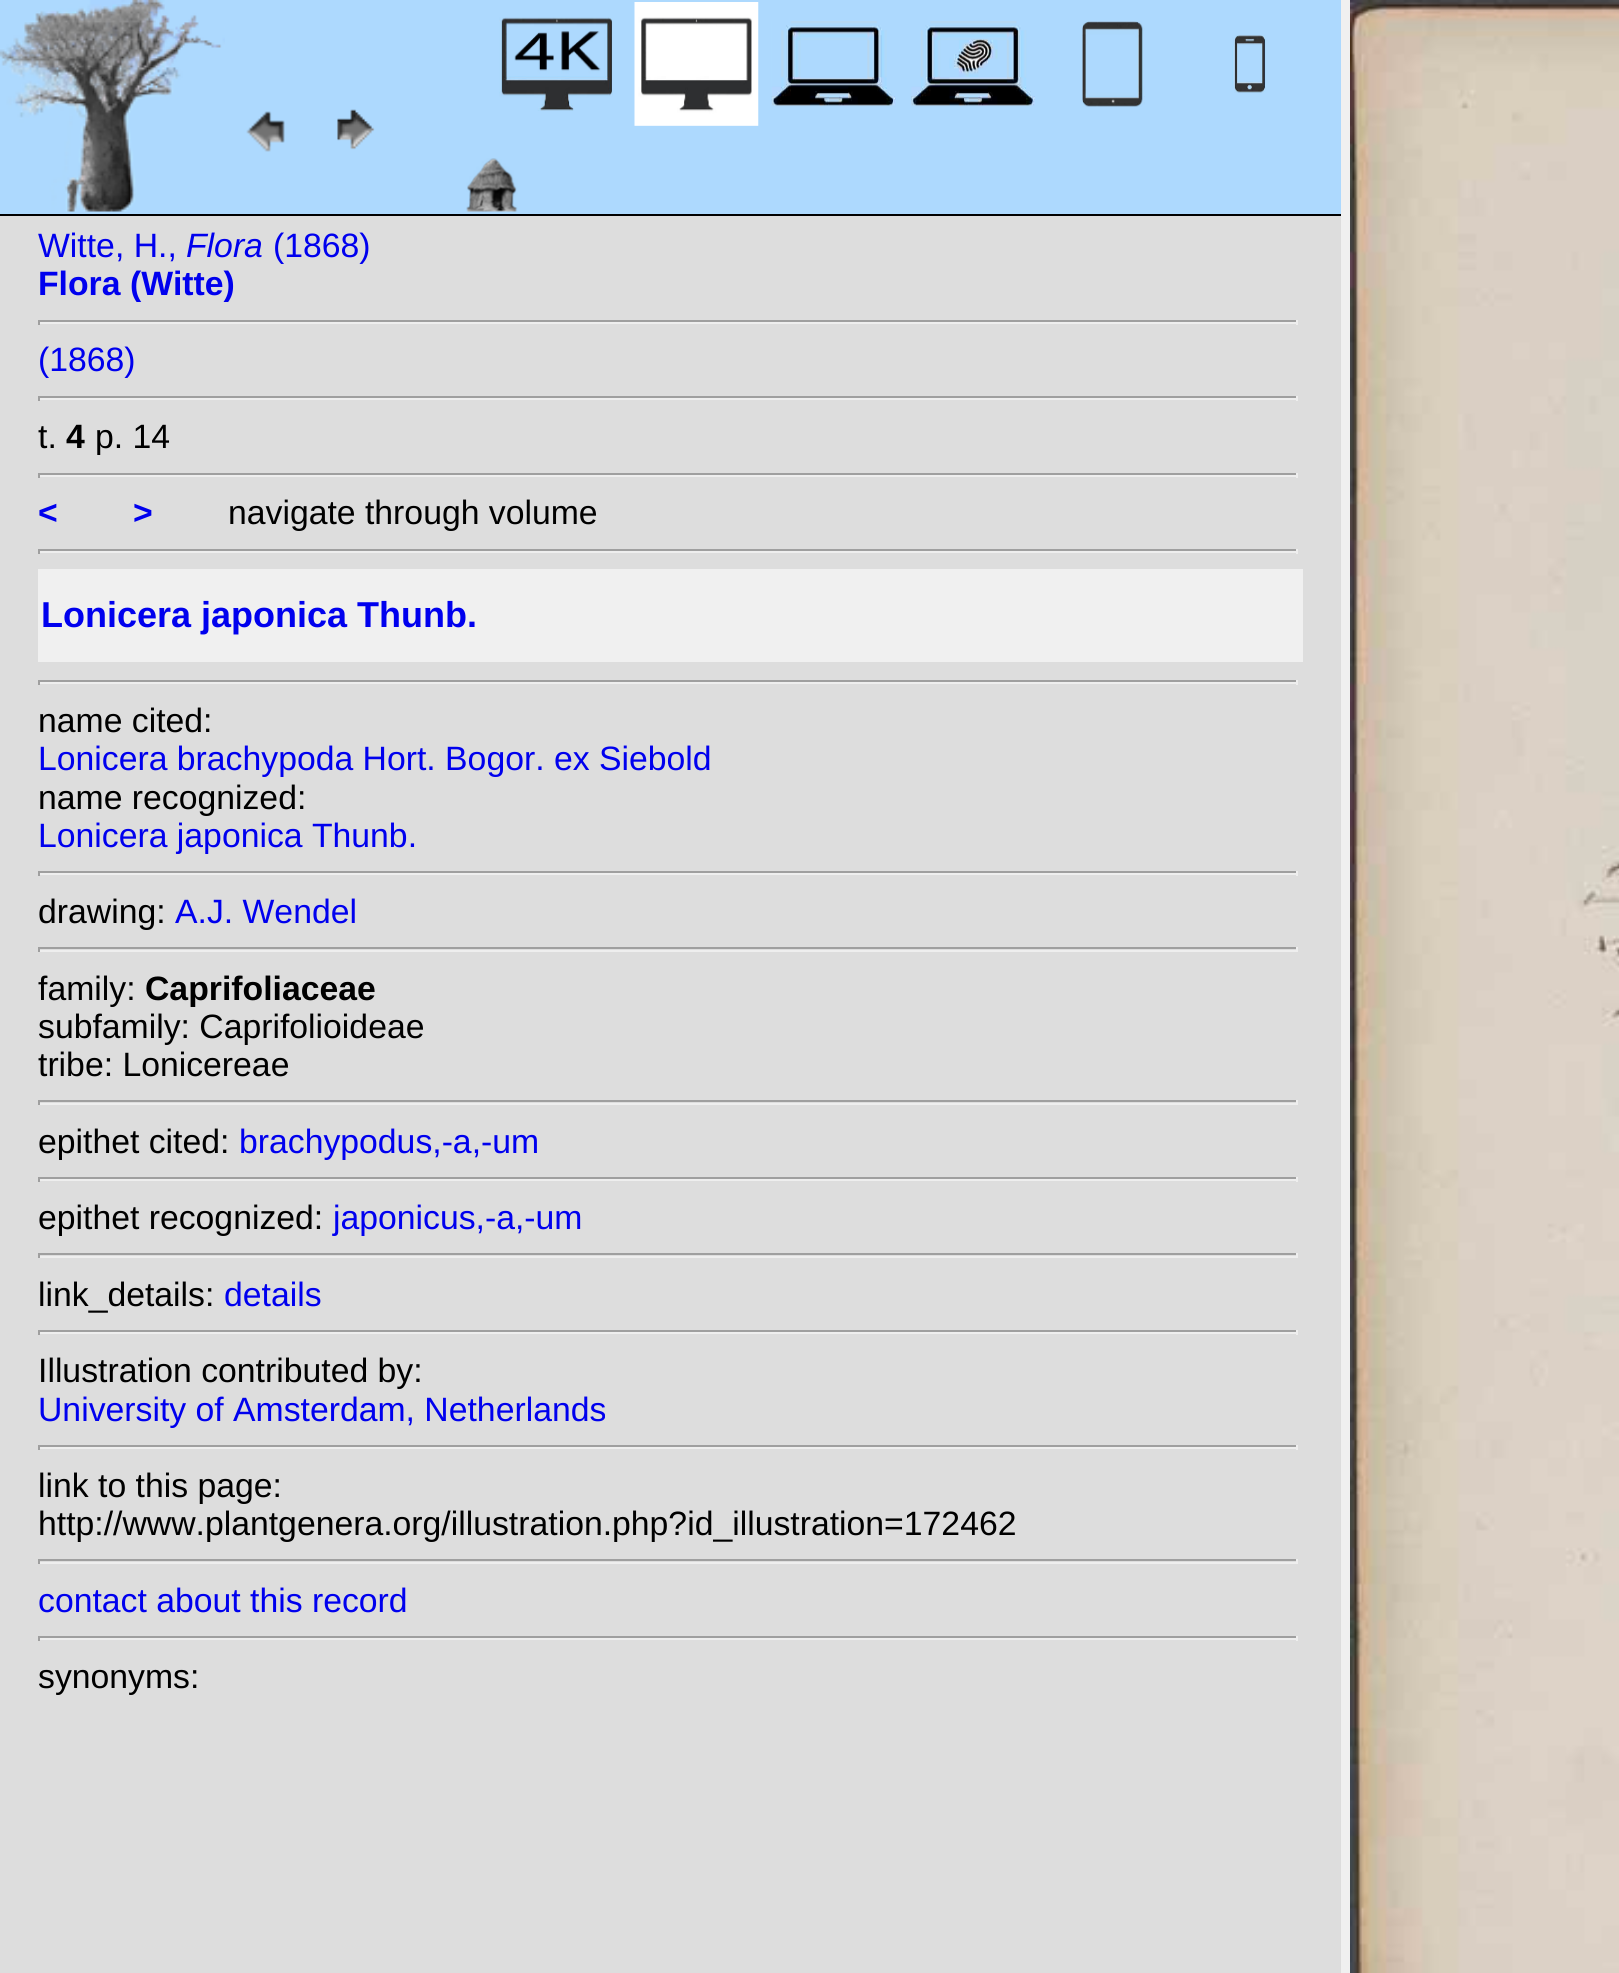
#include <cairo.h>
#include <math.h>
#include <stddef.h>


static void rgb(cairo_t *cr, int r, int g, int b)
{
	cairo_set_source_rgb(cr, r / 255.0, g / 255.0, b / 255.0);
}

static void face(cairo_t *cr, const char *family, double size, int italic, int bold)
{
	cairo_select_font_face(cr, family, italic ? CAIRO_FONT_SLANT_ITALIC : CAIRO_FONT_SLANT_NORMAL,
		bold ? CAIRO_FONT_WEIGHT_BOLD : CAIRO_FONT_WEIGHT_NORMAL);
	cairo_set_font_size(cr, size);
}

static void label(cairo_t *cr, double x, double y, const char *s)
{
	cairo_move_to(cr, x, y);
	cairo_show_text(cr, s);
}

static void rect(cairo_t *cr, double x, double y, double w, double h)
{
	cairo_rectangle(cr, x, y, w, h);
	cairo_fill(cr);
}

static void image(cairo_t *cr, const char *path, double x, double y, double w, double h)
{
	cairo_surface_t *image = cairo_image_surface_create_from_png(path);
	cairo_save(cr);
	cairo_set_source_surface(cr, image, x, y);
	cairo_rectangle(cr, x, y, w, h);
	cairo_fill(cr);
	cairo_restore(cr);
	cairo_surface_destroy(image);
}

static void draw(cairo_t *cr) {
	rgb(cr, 240, 240, 240);
	cairo_paint(cr);
	rgb(cr, 221, 221, 221);
	rect(cr, 0, 216, 1341, 1757);
	rgb(cr, 173, 217, 254);
	rect(cr, 0, 0, 1341, 214);
	rgb(cr, 0, 0, 0);
	rect(cr, 0, 214, 1341, 2);
	image(cr, "image0.png", 0, 0, 225, 212);
	image(cr, "image1.png", 246, 111, 39, 41);
	image(cr, "image2.png", 337, 109, 38, 41);
	image(cr, "image3.png", 499, 17, 114, 94);
	image(cr, "image4.png", 634, 2, 125, 124);
	image(cr, "image5.png", 771, 21, 125, 86);
	image(cr, "image6.png", 911, 21, 124, 86);
	image(cr, "image7.png", 1082, 21, 63, 86);
	image(cr, "image8.png", 1232, 35, 34, 58);
	image(cr, "image9.png", 466, 158, 52, 54);
	face(cr, "Liberation Sans", 33.75, 0, 0);
	rgb(cr, 0, 0, 238);
	label(cr, 38, 257, "Witte, H.,");
	face(cr, "Liberation Sans", 33.75, 1, 0);
	label(cr, 186, 257, "Flora");
	face(cr, "Liberation Sans", 33.75, 0, 0);
	label(cr, 273, 257, "(1868)");
	face(cr, "Liberation Sans", 33.75, 0, 1);
	label(cr, 38, 295, "Flora (Witte)");
	rgb(cr, 159, 159, 159);
	rect(cr, 38, 320, 1260, 2);
	rgb(cr, 238, 238, 238);
	rect(cr, 1296, 320, 2, 5);
	rect(cr, 38, 322, 1260, 2);
	rgb(cr, 159, 159, 159);
	rect(cr, 38, 320, 2, 5);
	face(cr, "Liberation Sans", 33.75, 0, 0);
	rgb(cr, 0, 0, 238);
	label(cr, 38, 371, "(1868)");
	rgb(cr, 159, 159, 159);
	rect(cr, 38, 396, 1260, 2);
	rgb(cr, 238, 238, 238);
	rect(cr, 1296, 396, 2, 5);
	rect(cr, 38, 398, 1260, 2);
	rgb(cr, 159, 159, 159);
	rect(cr, 38, 396, 2, 5);
	rgb(cr, 0, 0, 0);
	label(cr, 38, 448, "t.");
	face(cr, "Liberation Sans", 33.75, 0, 1);
	label(cr, 66, 448, "4");
	face(cr, "Liberation Sans", 33.75, 0, 0);
	label(cr, 95, 448, "p. 14");
	rgb(cr, 159, 159, 159);
	rect(cr, 38, 473, 1260, 2);
	rgb(cr, 238, 238, 238);
	rect(cr, 1296, 473, 2, 5);
	rect(cr, 38, 475, 1260, 2);
	rgb(cr, 159, 159, 159);
	rect(cr, 38, 473, 2, 5);
	face(cr, "Liberation Sans", 33.75, 0, 1);
	rgb(cr, 0, 0, 238);
	label(cr, 38, 524, "<");
	label(cr, 133, 524, ">");
	face(cr, "Liberation Sans", 33.75, 0, 0);
	rgb(cr, 0, 0, 0);
	label(cr, 228, 524, "navigate through volume");
	rgb(cr, 159, 159, 159);
	rect(cr, 38, 549, 1260, 2);
	rgb(cr, 238, 238, 238);
	rect(cr, 1296, 549, 2, 5);
	rect(cr, 38, 551, 1260, 2);
	rgb(cr, 159, 159, 159);
	rect(cr, 38, 549, 2, 5);
	rgb(cr, 240, 240, 240);
	rect(cr, 38, 569, 1265, 93);
	face(cr, "Liberation Sans", 36, 0, 1);
	rgb(cr, 0, 0, 238);
	label(cr, 41, 627, "Lonicera japonica Thunb.");
	rgb(cr, 159, 159, 159);
	rect(cr, 38, 680, 1260, 2);
	rgb(cr, 238, 238, 238);
	rect(cr, 1296, 680, 2, 5);
	rect(cr, 38, 682, 1260, 2);
	rgb(cr, 159, 159, 159);
	rect(cr, 38, 680, 2, 5);
	face(cr, "Liberation Sans", 33.75, 0, 0);
	rgb(cr, 0, 0, 0);
	label(cr, 38, 732, "name cited:");
	rgb(cr, 0, 0, 238);
	label(cr, 38, 770, "Lonicera brachypoda Hort. Bogor. ex Siebold");
	rgb(cr, 0, 0, 0);
	label(cr, 38, 809, "name recognized:");
	rgb(cr, 0, 0, 238);
	label(cr, 38, 847, "Lonicera japonica Thunb.");
	rgb(cr, 159, 159, 159);
	rect(cr, 38, 871, 1260, 2);
	rgb(cr, 238, 238, 238);
	rect(cr, 1296, 871, 2, 5);
	rect(cr, 38, 873, 1260, 2);
	rgb(cr, 159, 159, 159);
	rect(cr, 38, 871, 2, 5);
	rgb(cr, 0, 0, 0);
	label(cr, 38, 923, "drawing:");
	rgb(cr, 0, 0, 238);
	label(cr, 175, 923, "A.J. Wendel");
	rgb(cr, 159, 159, 159);
	rect(cr, 38, 947, 1260, 2);
	rgb(cr, 238, 238, 238);
	rect(cr, 1296, 947, 2, 5);
	rect(cr, 38, 950, 1260, 2);
	rgb(cr, 159, 159, 159);
	rect(cr, 38, 947, 2, 5);
	rgb(cr, 0, 0, 0);
	label(cr, 38, 1000, "family:");
	face(cr, "Liberation Sans", 33.75, 0, 1);
	label(cr, 145, 1000, "Caprifoliaceae");
	face(cr, "Liberation Sans", 33.75, 0, 0);
	label(cr, 38, 1038, "subfamily: Caprifolioideae");
	label(cr, 38, 1076, "tribe: Lonicereae");
	rgb(cr, 159, 159, 159);
	rect(cr, 38, 1100, 1260, 2);
	rgb(cr, 238, 238, 238);
	rect(cr, 1296, 1100, 2, 5);
	rect(cr, 38, 1103, 1260, 2);
	rgb(cr, 159, 159, 159);
	rect(cr, 38, 1100, 2, 5);
	rgb(cr, 0, 0, 0);
	label(cr, 38, 1153, "epithet cited:");
	rgb(cr, 0, 0, 238);
	label(cr, 239, 1153, "brachypodus,-a,-um");
	rgb(cr, 159, 159, 159);
	rect(cr, 38, 1177, 1260, 2);
	rgb(cr, 238, 238, 238);
	rect(cr, 1296, 1177, 2, 5);
	rect(cr, 38, 1179, 1260, 2);
	rgb(cr, 159, 159, 159);
	rect(cr, 38, 1177, 2, 5);
	rgb(cr, 0, 0, 0);
	label(cr, 38, 1229, "epithet recognized:");
	rgb(cr, 0, 0, 238);
	label(cr, 333, 1229, "japonicus,-a,-um");
	rgb(cr, 159, 159, 159);
	rect(cr, 38, 1253, 1260, 2);
	rgb(cr, 238, 238, 238);
	rect(cr, 1296, 1253, 2, 5);
	rect(cr, 38, 1256, 1260, 2);
	rgb(cr, 159, 159, 159);
	rect(cr, 38, 1253, 2, 5);
	rgb(cr, 0, 0, 0);
	label(cr, 38, 1306, "link_details:");
	rgb(cr, 0, 0, 238);
	label(cr, 224, 1306, "details");
	rgb(cr, 159, 159, 159);
	rect(cr, 38, 1330, 1260, 2);
	rgb(cr, 238, 238, 238);
	rect(cr, 1296, 1330, 2, 5);
	rect(cr, 38, 1332, 1260, 2);
	rgb(cr, 159, 159, 159);
	rect(cr, 38, 1330, 2, 5);
	rgb(cr, 0, 0, 0);
	label(cr, 38, 1382, "Illustration contributed by:");
	rgb(cr, 0, 0, 238);
	label(cr, 38, 1421, "University of Amsterdam, Netherlands");
	rgb(cr, 159, 159, 159);
	rect(cr, 38, 1445, 1260, 2);
	rgb(cr, 238, 238, 238);
	rect(cr, 1296, 1445, 2, 5);
	rect(cr, 38, 1447, 1260, 2);
	rgb(cr, 159, 159, 159);
	rect(cr, 38, 1445, 2, 5);
	rgb(cr, 0, 0, 0);
	label(cr, 38, 1497, "link to this page:");
	label(cr, 38, 1535, "http://www.plantgenera.org/illustration.php?id_illustration=172462");
	rgb(cr, 159, 159, 159);
	rect(cr, 38, 1559, 1260, 2);
	rgb(cr, 238, 238, 238);
	rect(cr, 1296, 1559, 2, 5);
	rect(cr, 38, 1562, 1260, 2);
	rgb(cr, 159, 159, 159);
	rect(cr, 38, 1559, 2, 5);
	rgb(cr, 0, 0, 238);
	label(cr, 38, 1612, "contact about this record");
	rgb(cr, 159, 159, 159);
	rect(cr, 38, 1636, 1260, 2);
	rgb(cr, 238, 238, 238);
	rect(cr, 1296, 1636, 2, 5);
	rect(cr, 38, 1638, 1260, 2);
	rgb(cr, 159, 159, 159);
	rect(cr, 38, 1636, 2, 5);
	rgb(cr, 0, 0, 0);
	label(cr, 38, 1688, "synonyms:");
	image(cr, "image10.png", 1350, 0, 269, 1973);
}

int main(void) {
	cairo_surface_t *surface = cairo_image_surface_create(CAIRO_FORMAT_RGB24, 1619, 1973);
	cairo_t *cr = cairo_create(surface);
	cairo_font_options_t *options = cairo_font_options_create();
	cairo_font_options_set_hint_metrics(options, CAIRO_HINT_METRICS_OFF);
	cairo_font_options_set_hint_style(options, CAIRO_HINT_STYLE_NONE);
	cairo_set_font_options(cr, options);
	cairo_set_miter_limit(cr, 4);
	draw(cr);
	cairo_surface_write_to_png(surface, "render.png");
	cairo_font_options_destroy(options);
	cairo_destroy(cr);
	cairo_surface_destroy(surface);
	return 0;
}
